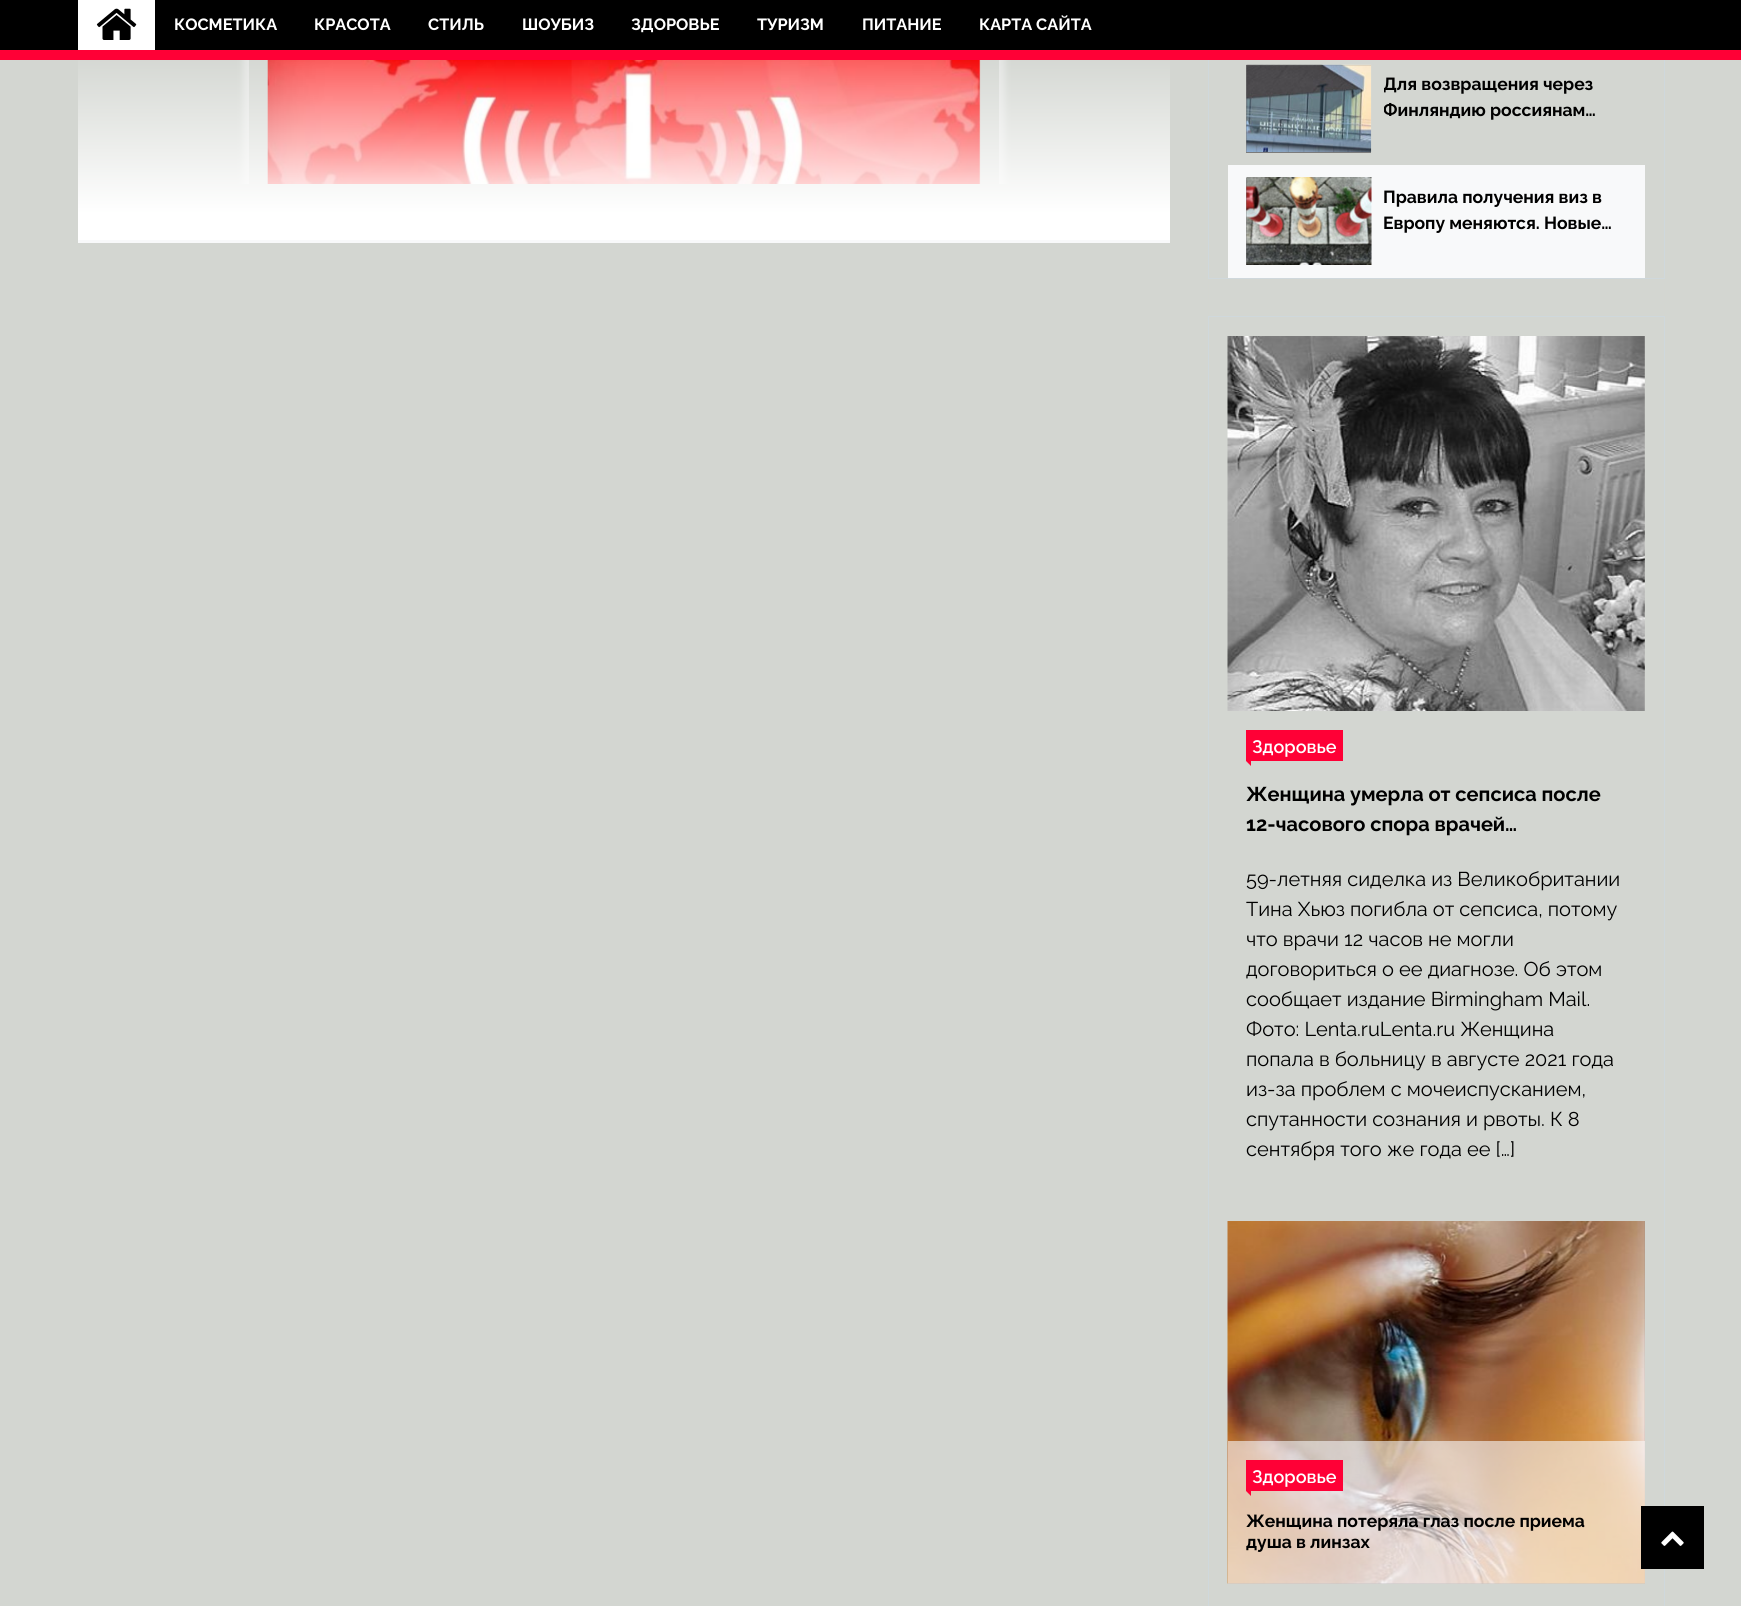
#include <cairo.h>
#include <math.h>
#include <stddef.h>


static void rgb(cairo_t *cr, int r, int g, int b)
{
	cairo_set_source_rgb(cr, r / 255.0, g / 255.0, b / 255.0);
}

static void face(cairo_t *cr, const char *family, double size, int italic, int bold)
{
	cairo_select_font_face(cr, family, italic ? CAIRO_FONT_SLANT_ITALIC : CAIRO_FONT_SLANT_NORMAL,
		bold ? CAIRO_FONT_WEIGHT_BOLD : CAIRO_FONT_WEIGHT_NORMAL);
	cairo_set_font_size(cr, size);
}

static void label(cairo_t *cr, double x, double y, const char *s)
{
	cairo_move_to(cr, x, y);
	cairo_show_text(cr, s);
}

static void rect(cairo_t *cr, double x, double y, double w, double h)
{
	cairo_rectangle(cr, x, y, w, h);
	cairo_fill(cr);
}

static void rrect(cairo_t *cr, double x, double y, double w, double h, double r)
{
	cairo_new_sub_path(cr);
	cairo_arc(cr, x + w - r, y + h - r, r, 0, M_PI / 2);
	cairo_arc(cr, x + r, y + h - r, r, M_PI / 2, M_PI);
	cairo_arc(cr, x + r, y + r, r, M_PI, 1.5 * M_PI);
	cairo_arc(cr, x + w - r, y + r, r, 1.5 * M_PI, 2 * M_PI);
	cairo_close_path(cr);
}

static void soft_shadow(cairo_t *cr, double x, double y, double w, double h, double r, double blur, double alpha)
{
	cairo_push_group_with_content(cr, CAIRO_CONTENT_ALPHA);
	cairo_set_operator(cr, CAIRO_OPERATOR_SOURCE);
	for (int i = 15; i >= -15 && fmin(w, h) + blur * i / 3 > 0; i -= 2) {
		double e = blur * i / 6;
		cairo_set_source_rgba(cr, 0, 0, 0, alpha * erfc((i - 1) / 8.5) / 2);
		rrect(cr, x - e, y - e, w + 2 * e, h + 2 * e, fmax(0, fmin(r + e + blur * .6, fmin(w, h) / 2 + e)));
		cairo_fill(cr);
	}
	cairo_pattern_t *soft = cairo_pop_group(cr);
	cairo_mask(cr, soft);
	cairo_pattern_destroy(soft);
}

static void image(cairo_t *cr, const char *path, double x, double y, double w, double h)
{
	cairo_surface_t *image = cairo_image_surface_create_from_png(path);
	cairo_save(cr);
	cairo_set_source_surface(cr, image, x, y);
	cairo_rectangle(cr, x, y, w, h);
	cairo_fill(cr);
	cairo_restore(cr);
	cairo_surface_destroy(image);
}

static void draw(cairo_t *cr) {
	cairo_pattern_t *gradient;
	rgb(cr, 211, 214, 209);
	cairo_paint(cr);
	rgb(cr, 248, 249, 250);
	rect(cr, 78, 240, 1092, 3);
	cairo_save(cr);
	cairo_rectangle(cr, 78, 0, 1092, 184);
	cairo_clip(cr);
	cairo_set_fill_rule(cr, CAIRO_FILL_RULE_EVEN_ODD);
	cairo_new_path(cr);
	cairo_move_to(cr, 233, 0);
	cairo_line_to(cr, 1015, 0);
	cairo_line_to(cr, 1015, 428);
	cairo_line_to(cr, 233, 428);
	cairo_close_path(cr);
	cairo_move_to(cr, 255, -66);
	cairo_line_to(cr, 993, -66);
	cairo_curve_to(cr, 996.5, -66, 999, -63.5, 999, -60);
	cairo_line_to(cr, 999, 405);
	cairo_curve_to(cr, 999, 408.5, 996.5, 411, 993, 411);
	cairo_line_to(cr, 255, 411);
	cairo_curve_to(cr, 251.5, 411, 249, 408.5, 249, 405);
	cairo_line_to(cr, 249, -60);
	cairo_curve_to(cr, 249, -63.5, 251.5, -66, 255, -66);
	cairo_close_path(cr);
	cairo_clip(cr);
	rgb(cr, 238, 238, 238);
	soft_shadow(cr, 243, -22, 762, 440, 13, 3, 0.6);
	cairo_restore(cr);
	cairo_rectangle(cr, 1208.5, -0.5, 456, 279);
	rgb(cr, 207, 216, 220);
	cairo_set_line_width(cr, 1);
	cairo_stroke(cr);
	rgb(cr, 0, 0, 0);
	rect(cr, 0, 0, 1741, 50);
	rgb(cr, 255, 255, 255);
	rect(cr, 78, 0, 77, 50);
	image(cr, "image0.png", 96, 8, 41, 32);
	face(cr, "Raleway", 16.25, 0, 1);
	label(cr, 174, 30, "КОСМЕТИКА");
	label(cr, 314, 30, "КРАСОТА");
	label(cr, 428, 30, "СТИЛЬ");
	label(cr, 522, 30, "ШОУБИЗ");
	label(cr, 631, 30, "ЗДОРОВЬЕ");
	label(cr, 757, 30, "ТУРИЗМ");
	label(cr, 862, 30, "ПИТАНИЕ");
	label(cr, 979, 30, "КАРТА САЙТА");
	rgb(cr, 255, 0, 54);
	rect(cr, 0, 50, 1741, 10);
	image(cr, "image1.png", 267, 60, 714, 124);
	gradient = cairo_pattern_create_linear(624, 52, 624, 240);
	cairo_pattern_add_color_stop_rgba(gradient, 0, 1, 1, 1, 0);
	cairo_pattern_add_color_stop_rgba(gradient, 0.86, 1, 1, 1, 1);
	cairo_pattern_add_color_stop_rgba(gradient, 1, 1, 1, 1, 1);
	cairo_set_source(cr, gradient);
	cairo_pattern_destroy(gradient);
	rect(cr, 78, 60, 1092, 180);
	rgb(cr, 123, 123, 123);
	rect(cr, 1246, 65, 125, 88);
	image(cr, "image2.png", 1246, 64, 126, 88);
	cairo_save(cr);
	cairo_rectangle(cr, 1384, 71, 230, 53);
	cairo_clip(cr);
	face(cr, "Raleway", 17.5, 0, 1);
	rgb(cr, 0, 0, 0);
	label(cr, 1383, 90, "Для возвращения через");
	label(cr, 1383, 116, "Финляндию россиянам…");
	cairo_restore(cr);
	rgb(cr, 248, 249, 250);
	rect(cr, 1228, 165, 417, 113);
	rgb(cr, 123, 123, 123);
	rect(cr, 1246, 178, 125, 87);
	image(cr, "image3.png", 1246, 177, 126, 88);
	face(cr, "Raleway", 17.5, 0, 1);
	rgb(cr, 0, 0, 0);
	label(cr, 1383, 203, "Правила получения виз в");
	label(cr, 1383, 229, "Европу меняются. Новые…");
	cairo_rectangle(cr, 1208.5, 316.5, 456, 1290);
	rgb(cr, 207, 216, 220);
	cairo_stroke(cr);
	image(cr, "image4.png", 1227, 336, 418, 375);
	rgb(cr, 255, 0, 54);
	rect(cr, 1246, 730, 97, 31);
	face(cr, "Raleway SemiBold", 18, 0, 0);
	rgb(cr, 255, 255, 255);
	label(cr, 1252, 753, "Здоровье");
	rgb(cr, 255, 0, 54);
	cairo_new_path(cr);
	cairo_move_to(cr, 1251, 761);
	cairo_line_to(cr, 1251, 766);
	cairo_line_to(cr, 1246, 761);
	cairo_close_path(cr);
	cairo_fill(cr);
	face(cr, "Raleway", 20, 0, 1);
	rgb(cr, 0, 0, 0);
	label(cr, 1246, 801, "Женщина умерла от сепсиса после");
	label(cr, 1246, 831, "12-часового спора врачей…");
	face(cr, "Raleway", 20, 0, 0);
	label(cr, 1246, 886, "59-летняя сиделка из Великобритании");
	label(cr, 1246, 916, "Тина Хьюз погибла от сепсиса, потому");
	label(cr, 1246, 946, "что врачи 12 часов не могли");
	label(cr, 1246, 976, "договориться о ее диагнозе. Об этом");
	label(cr, 1246, 1006, "сообщает издание Birmingham Mail.");
	label(cr, 1246, 1036, "Фото: Lenta.ruLenta.ru Женщина");
	label(cr, 1246, 1066, "попала в больницу в августе 2021 года");
	label(cr, 1246, 1096, "из-за проблем с мочеиспусканием,");
	label(cr, 1246, 1126, "спутанности сознания и рвоты. К 8");
	label(cr, 1246, 1156, "сентября того же года ее […]");
	rgb(cr, 123, 123, 123);
	rect(cr, 1228, 1221, 417, 363);
	image(cr, "image5.png", 1227, 1221, 418, 363);
	cairo_set_source_rgba(cr, 0.973, 0.976, 0.98, 0.6);
	rect(cr, 1228, 1441, 417, 143);
	rgb(cr, 255, 0, 54);
	rect(cr, 1246, 1460, 97, 31);
	face(cr, "Raleway SemiBold", 18, 0, 0);
	rgb(cr, 255, 255, 255);
	label(cr, 1252, 1483, "Здоровье");
	rgb(cr, 255, 0, 54);
	cairo_new_path(cr);
	cairo_move_to(cr, 1251, 1491);
	cairo_line_to(cr, 1251, 1496);
	cairo_line_to(cr, 1246, 1491);
	cairo_close_path(cr);
	cairo_fill(cr);
	face(cr, "Raleway", 17.5, 0, 1);
	rgb(cr, 0, 0, 0);
	label(cr, 1246, 1527, "Женщина потеряла глаз после приема");
	label(cr, 1246, 1548, "душа в линзах");
	rect(cr, 1641, 1506, 63, 63);
	image(cr, "image6.png", 1661, 1531, 23, 15);
}

int main(void) {
	cairo_surface_t *surface = cairo_image_surface_create(CAIRO_FORMAT_RGB24, 1741, 1606);
	cairo_t *cr = cairo_create(surface);
	cairo_font_options_t *options = cairo_font_options_create();
	cairo_font_options_set_hint_metrics(options, CAIRO_HINT_METRICS_OFF);
	cairo_font_options_set_hint_style(options, CAIRO_HINT_STYLE_NONE);
	cairo_set_font_options(cr, options);
	cairo_set_miter_limit(cr, 4);
	draw(cr);
	cairo_surface_write_to_png(surface, "render.png");
	cairo_font_options_destroy(options);
	cairo_destroy(cr);
	cairo_surface_destroy(surface);
	return 0;
}
